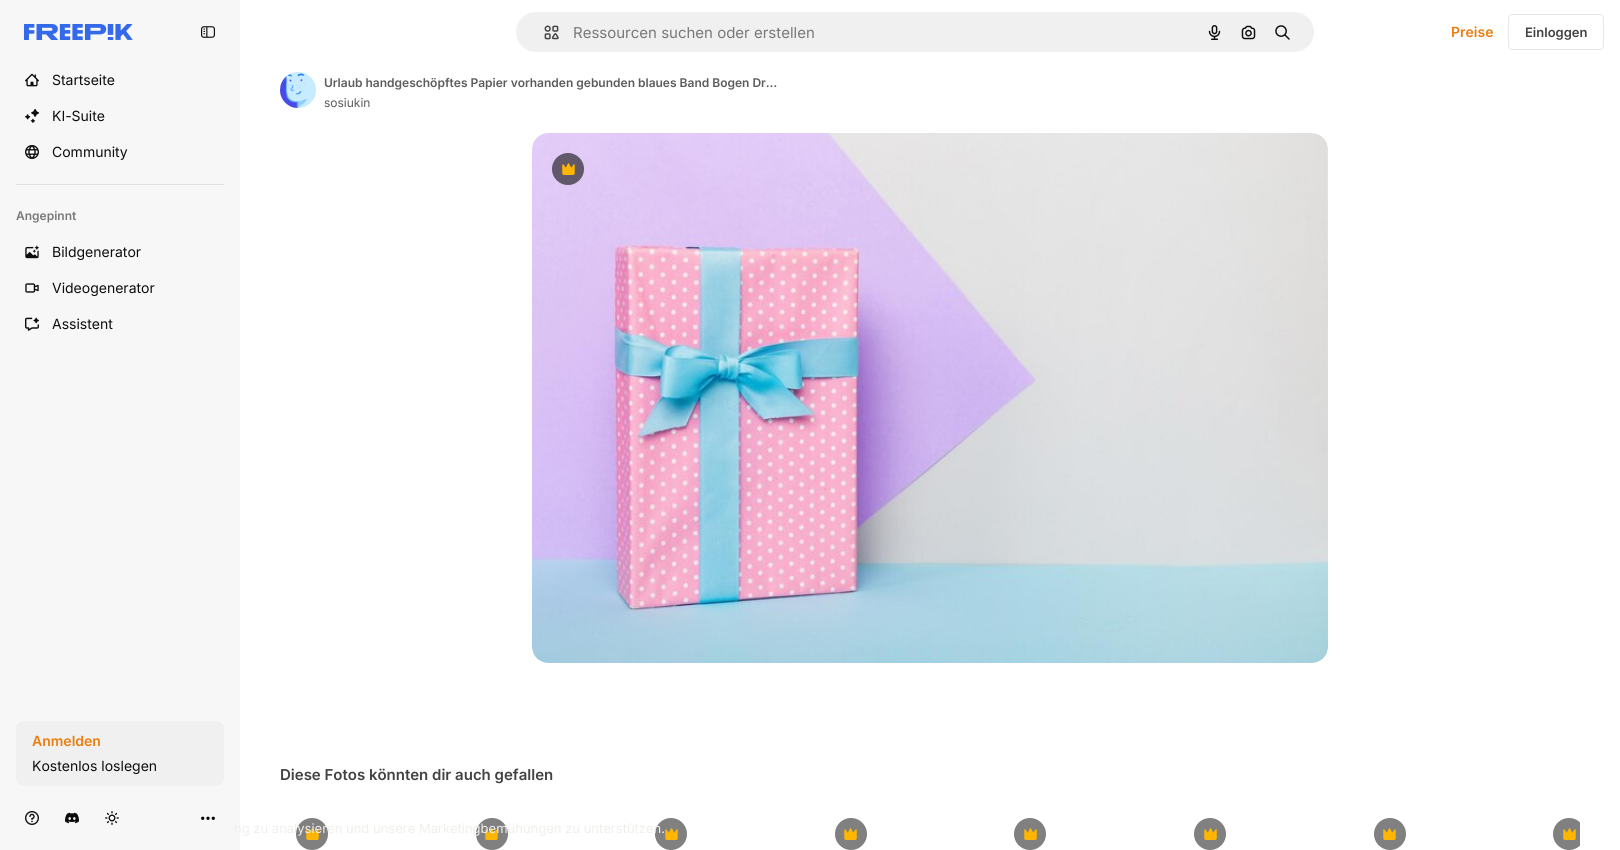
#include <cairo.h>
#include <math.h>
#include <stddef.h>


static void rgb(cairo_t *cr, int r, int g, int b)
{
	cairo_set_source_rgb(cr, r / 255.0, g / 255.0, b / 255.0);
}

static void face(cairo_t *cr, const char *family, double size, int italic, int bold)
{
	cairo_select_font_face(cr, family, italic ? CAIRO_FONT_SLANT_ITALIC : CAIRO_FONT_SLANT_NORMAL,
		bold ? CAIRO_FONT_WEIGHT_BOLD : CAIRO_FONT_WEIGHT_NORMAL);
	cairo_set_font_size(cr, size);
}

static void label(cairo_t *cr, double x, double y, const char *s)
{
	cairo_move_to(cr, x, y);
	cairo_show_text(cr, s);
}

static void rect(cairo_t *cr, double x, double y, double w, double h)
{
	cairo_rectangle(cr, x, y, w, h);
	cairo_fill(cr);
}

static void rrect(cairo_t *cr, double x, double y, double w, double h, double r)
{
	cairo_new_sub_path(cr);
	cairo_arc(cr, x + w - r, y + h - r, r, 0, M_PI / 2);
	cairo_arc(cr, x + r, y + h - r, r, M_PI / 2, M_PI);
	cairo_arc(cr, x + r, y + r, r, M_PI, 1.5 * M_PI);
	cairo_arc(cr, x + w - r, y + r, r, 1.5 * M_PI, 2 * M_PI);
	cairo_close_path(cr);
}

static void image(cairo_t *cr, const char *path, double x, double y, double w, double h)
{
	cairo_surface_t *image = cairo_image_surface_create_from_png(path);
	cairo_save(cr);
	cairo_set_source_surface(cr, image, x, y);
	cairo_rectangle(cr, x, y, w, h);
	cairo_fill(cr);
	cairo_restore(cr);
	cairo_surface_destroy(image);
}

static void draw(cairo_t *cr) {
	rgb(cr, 255, 255, 255);
	cairo_paint(cr);
	rgb(cr, 247, 247, 247);
	rect(cr, 0, 0, 240, 850);
	image(cr, "image0.png", 24, 24, 109, 16);
	image(cr, "image1.png", 201, 26, 14, 12);
	image(cr, "image2.png", 25, 73, 14, 14);
	face(cr, "Inter", 14, 0, 0);
	rgb(cr, 13, 13, 13);
	label(cr, 52, 85, "Startseite");
	image(cr, "image3.png", 25, 109, 14, 14);
	label(cr, 52, 121, "KI-Suite");
	image(cr, "image4.png", 25, 145, 14, 14);
	label(cr, 52, 157, "Community");
	rgb(cr, 224, 224, 224);
	rect(cr, 16, 184, 208, 1);
	face(cr, "Inter SemiBold", 12, 0, 0);
	rgb(cr, 120, 120, 120);
	label(cr, 16, 220, "Angepinnt");
	image(cr, "image5.png", 25, 245, 14, 14);
	face(cr, "Inter", 14, 0, 0);
	rgb(cr, 13, 13, 13);
	label(cr, 52, 257, "Bildgenerator");
	image(cr, "image6.png", 25, 283, 14, 10);
	label(cr, 52, 293, "Videogenerator");
	image(cr, "image7.png", 25, 317, 14, 14);
	label(cr, 52, 329, "Assistent");
	rgb(cr, 240, 240, 240);
	rrect(cr, 16, 721, 208, 65, 8);
	cairo_fill(cr);
	face(cr, "Inter SemiBold", 14, 0, 0);
	rgb(cr, 234, 126, 17);
	label(cr, 32, 746, "Anmelden");
	face(cr, "Inter", 14, 0, 0);
	rgb(cr, 13, 13, 13);
	label(cr, 32, 771, "Kostenlos loslegen");
	image(cr, "image8.png", 25, 811, 14, 14);
	image(cr, "image9.png", 65, 812, 14, 12);
	image(cr, "image10.png", 105, 811, 14, 14);
	image(cr, "image11.png", 201, 816, 14, 4);
	rgb(cr, 240, 240, 240);
	rrect(cr, 515.5, 11.5, 799, 41, 20.5);
	cairo_fill_preserve(cr);
	rgb(cr, 255, 255, 255);
	cairo_set_line_width(cr, 1);
	cairo_stroke(cr);
	image(cr, "image12.png", 544, 25, 15, 15);
	face(cr, "Inter", 15, 0, 0);
	rgb(cr, 120, 120, 120);
	label(cr, 573, 38, "Ressourcen suchen oder erstellen");
	image(cr, "image13.png", 1208, 25, 13, 15);
	image(cr, "image14.png", 1241, 25, 15, 15);
	image(cr, "image15.png", 1275, 25, 15, 15);
	face(cr, "Inter SemiBold", 14, 0, 0);
	rgb(cr, 234, 126, 17);
	label(cr, 1451, 37, "Preise");
	rrect(cr, 1508.5, 14.5, 95, 35, 3.5);
	rgb(cr, 231, 231, 231);
	cairo_stroke(cr);
	face(cr, "Inter SemiBold", 13, 0, 0);
	rgb(cr, 66, 66, 66);
	label(cr, 1525, 37, "Einloggen");
	image(cr, "image16.png", 280, 72, 36, 36);
	face(cr, "Inter SemiBold", 12, 0, 0);
	rgb(cr, 92, 92, 92);
	label(cr, 324, 87, "Urlaub handgeschöpftes Papier vorhanden gebunden blaues Band Bogen Dr…");
	face(cr, "Inter", 12, 0, 0);
	label(cr, 324, 107, "sosiukin");
	image(cr, "image17.png", 532, 133, 796, 530);
	cairo_set_source_rgba(cr, 0.051, 0.051, 0.051, 0.6);
	cairo_arc(cr, 568, 169, 16, 0, 2 * M_PI);
	cairo_fill(cr);
	image(cr, "image18.png", 562, 163, 13, 12);
	face(cr, "Inter SemiBold", 15, 0, 0);
	rgb(cr, 66, 66, 66);
	label(cr, 280, 780, "Diese Fotos könnten dir auch gefallen");
	rgb(cr, 128, 128, 128);
	cairo_new_path(cr);
	cairo_arc(cr, 312, 834, 16, 0, 2 * M_PI);
	cairo_fill(cr);
	image(cr, "image19.png", 306, 828, 13, 12);
	cairo_arc(cr, 492, 834, 16, 0, 2 * M_PI);
	cairo_fill(cr);
	image(cr, "image19.png", 485, 828, 13, 12);
	cairo_arc(cr, 671, 834, 16, 0, 2 * M_PI);
	cairo_fill(cr);
	image(cr, "image19.png", 665, 828, 13, 12);
	cairo_arc(cr, 851, 834, 16, 0, 2 * M_PI);
	cairo_fill(cr);
	image(cr, "image19.png", 844, 828, 13, 12);
	cairo_arc(cr, 1030, 834, 16, 0, 2 * M_PI);
	cairo_fill(cr);
	image(cr, "image19.png", 1024, 828, 13, 12);
	cairo_arc(cr, 1210, 834, 16, 0, 2 * M_PI);
	cairo_fill(cr);
	image(cr, "image19.png", 1204, 828, 13, 12);
	cairo_arc(cr, 1390, 834, 16, 0, 2 * M_PI);
	cairo_fill(cr);
	image(cr, "image19.png", 1383, 828, 13, 12);
	cairo_save(cr);
	cairo_rectangle(cr, 280, 802, 1300, 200);
	cairo_clip(cr);
	cairo_arc(cr, 1569, 834, 16, 0, 2 * M_PI);
	cairo_fill(cr);
	cairo_restore(cr);
	image(cr, "image19.png", 1563, 828, 13, 12);
	face(cr, "Inter", 13, 0, 0);
	rgb(cr, 240, 239, 236);
	label(cr, 234, 833, "ng zu analysieren und unsere Marketingbemühungen zu unterstützen.");
}

int main(void) {
	cairo_surface_t *surface = cairo_image_surface_create(CAIRO_FORMAT_RGB24, 1620, 850);
	cairo_t *cr = cairo_create(surface);
	cairo_font_options_t *options = cairo_font_options_create();
	cairo_font_options_set_hint_metrics(options, CAIRO_HINT_METRICS_OFF);
	cairo_font_options_set_hint_style(options, CAIRO_HINT_STYLE_NONE);
	cairo_set_font_options(cr, options);
	cairo_set_miter_limit(cr, 4);
	draw(cr);
	cairo_surface_write_to_png(surface, "render.png");
	cairo_font_options_destroy(options);
	cairo_destroy(cr);
	cairo_surface_destroy(surface);
	return 0;
}
